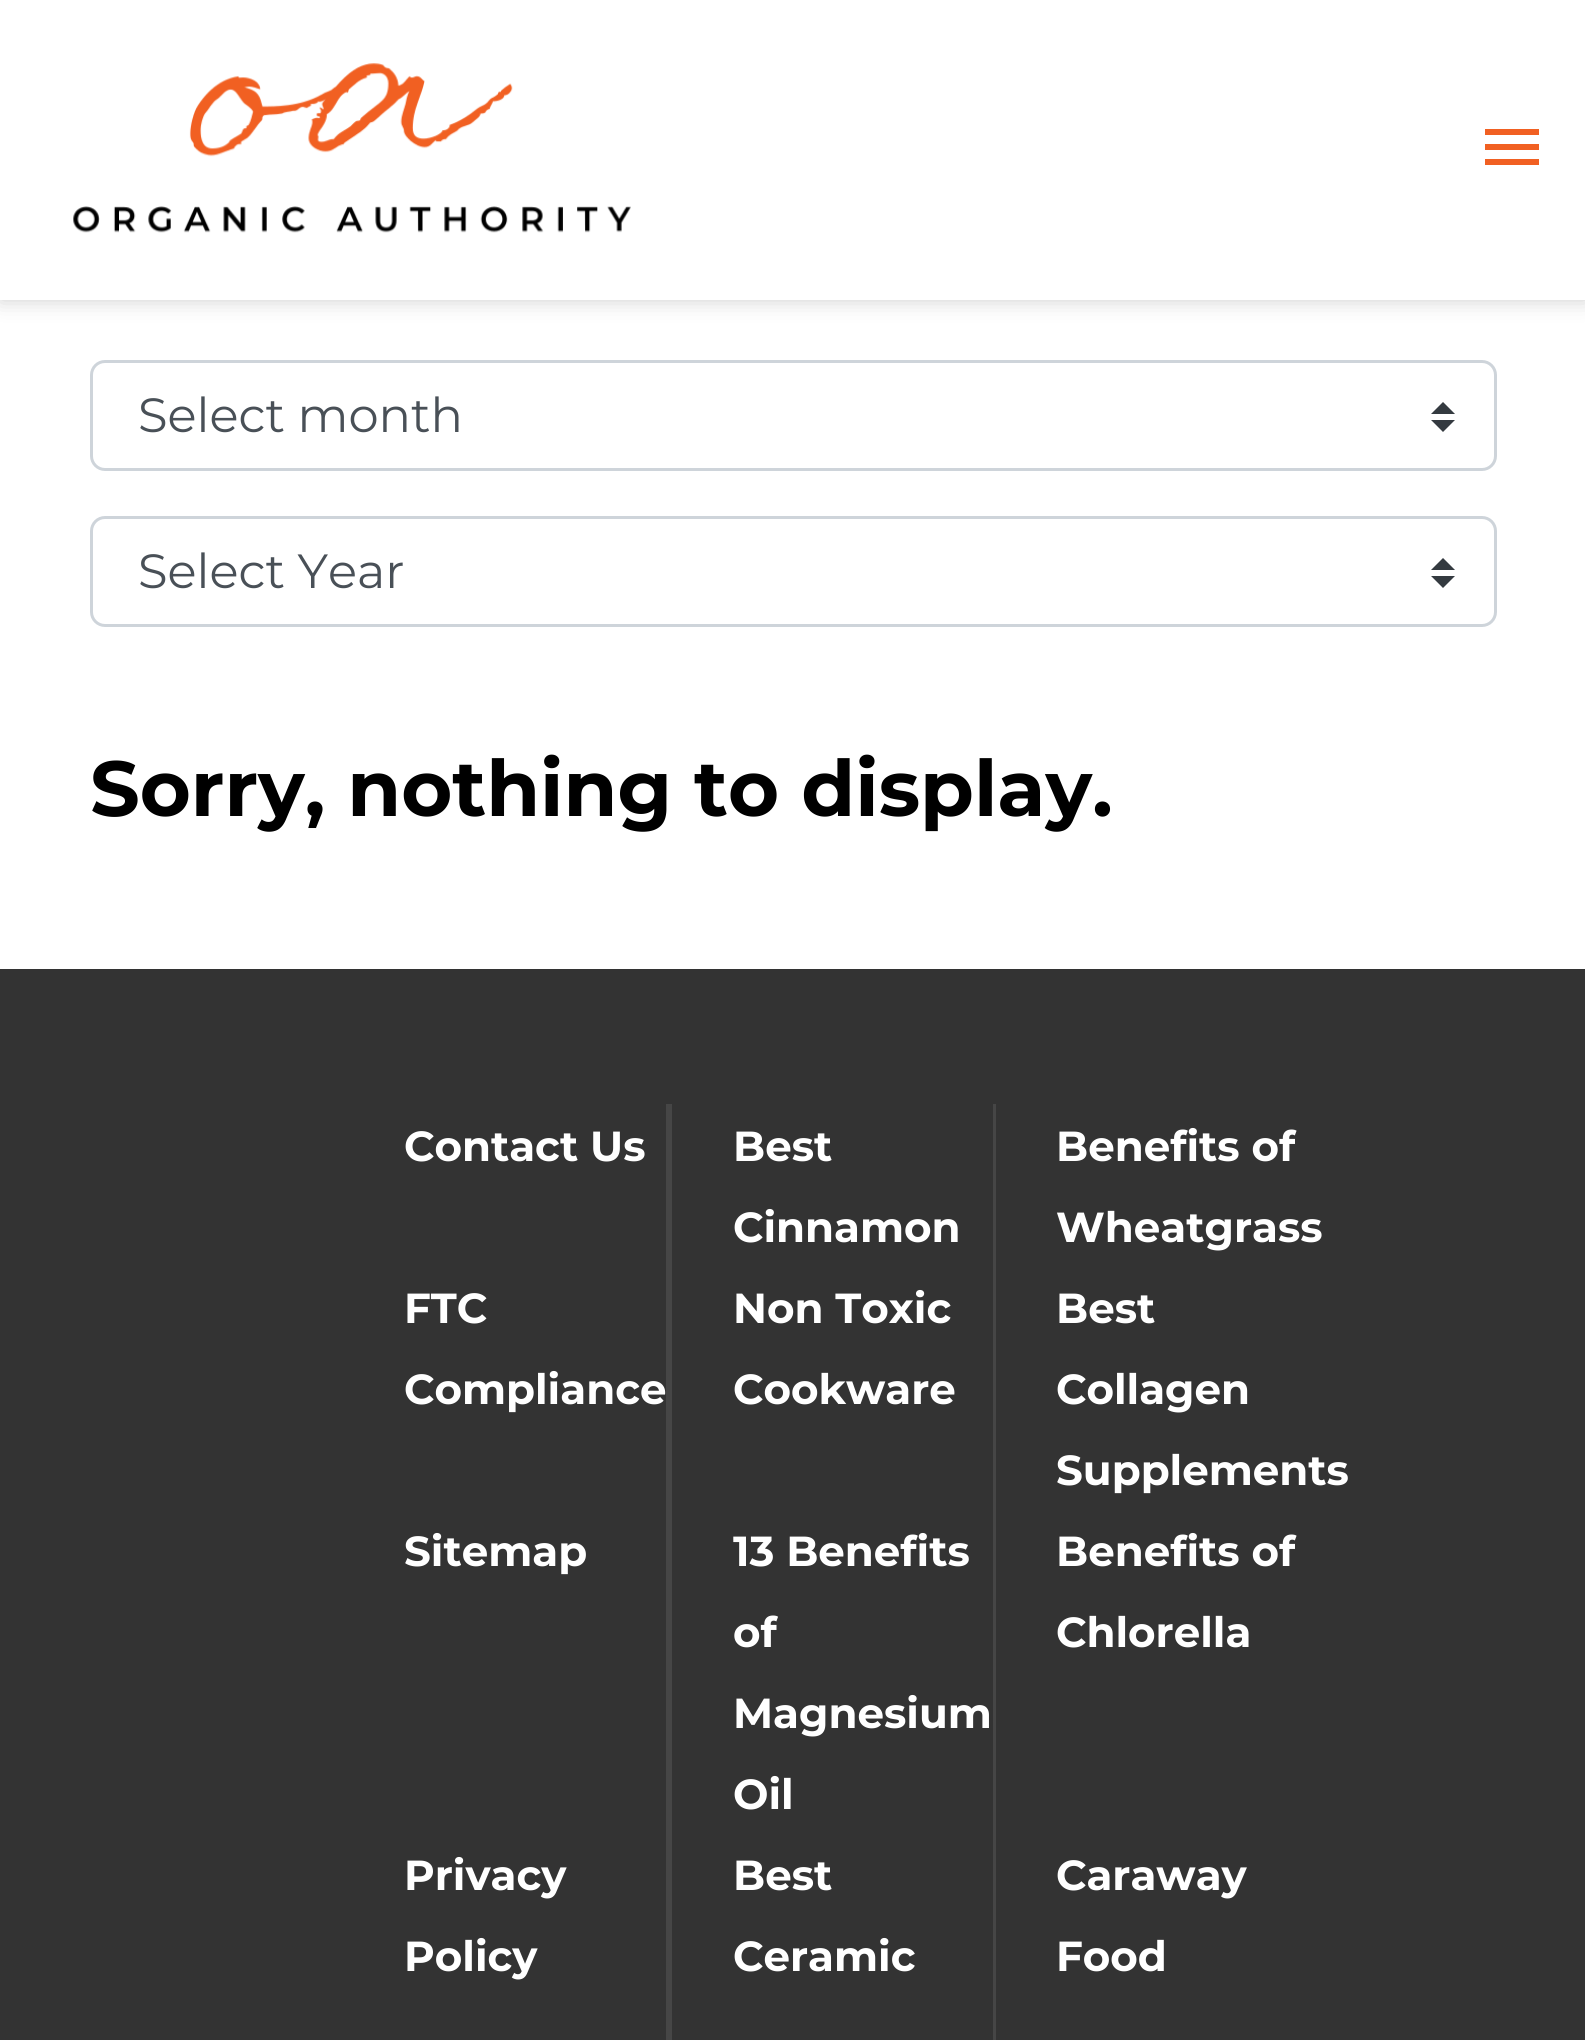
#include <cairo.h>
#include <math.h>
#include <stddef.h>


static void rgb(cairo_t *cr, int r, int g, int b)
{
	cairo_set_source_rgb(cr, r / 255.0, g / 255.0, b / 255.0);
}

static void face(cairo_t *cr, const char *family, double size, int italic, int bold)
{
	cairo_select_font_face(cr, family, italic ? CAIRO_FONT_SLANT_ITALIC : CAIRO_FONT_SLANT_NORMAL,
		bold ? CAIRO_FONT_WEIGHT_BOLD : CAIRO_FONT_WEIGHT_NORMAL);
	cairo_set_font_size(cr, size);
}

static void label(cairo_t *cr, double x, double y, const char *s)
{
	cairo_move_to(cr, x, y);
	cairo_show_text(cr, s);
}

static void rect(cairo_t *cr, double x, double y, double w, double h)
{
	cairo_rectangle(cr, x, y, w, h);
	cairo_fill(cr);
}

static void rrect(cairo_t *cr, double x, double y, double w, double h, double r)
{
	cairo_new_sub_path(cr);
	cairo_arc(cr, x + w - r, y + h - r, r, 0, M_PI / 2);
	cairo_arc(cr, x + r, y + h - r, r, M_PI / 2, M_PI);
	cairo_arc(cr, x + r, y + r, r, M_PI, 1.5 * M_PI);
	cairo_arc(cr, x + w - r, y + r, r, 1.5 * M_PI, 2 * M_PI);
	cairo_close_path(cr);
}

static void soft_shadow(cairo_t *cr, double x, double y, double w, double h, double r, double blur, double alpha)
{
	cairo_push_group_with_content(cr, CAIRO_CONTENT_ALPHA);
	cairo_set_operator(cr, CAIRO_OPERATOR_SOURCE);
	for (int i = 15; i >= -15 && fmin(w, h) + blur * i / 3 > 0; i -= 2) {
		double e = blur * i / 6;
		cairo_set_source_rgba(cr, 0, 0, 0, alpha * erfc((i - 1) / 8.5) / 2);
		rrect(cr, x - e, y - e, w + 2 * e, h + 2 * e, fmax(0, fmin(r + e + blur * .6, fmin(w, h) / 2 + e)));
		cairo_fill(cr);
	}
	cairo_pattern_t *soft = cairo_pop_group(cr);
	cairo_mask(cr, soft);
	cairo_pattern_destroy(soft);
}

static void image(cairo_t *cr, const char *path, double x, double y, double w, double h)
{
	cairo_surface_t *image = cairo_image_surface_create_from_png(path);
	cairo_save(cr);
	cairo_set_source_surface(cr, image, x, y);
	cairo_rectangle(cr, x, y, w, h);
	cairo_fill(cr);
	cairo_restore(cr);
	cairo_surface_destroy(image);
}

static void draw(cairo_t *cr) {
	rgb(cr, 255, 255, 255);
	cairo_paint(cr);
	rgb(cr, 0, 0, 0);
	soft_shadow(cr, 0, 0, 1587, 300, 0, 10.5, 0.2);
	rgb(cr, 255, 255, 255);
	rect(cr, 0, 0, 1585, 300);
	image(cr, "image0.png", 73, 63, 558, 170);
	rgb(cr, 241, 96, 34);
	rect(cr, 1485, 129, 54, 6);
	rect(cr, 1485, 144, 54, 6);
	rect(cr, 1485, 159, 54, 6);
	rgb(cr, 52, 58, 64);
	cairo_new_path(cr);
	cairo_move_to(cr, 1443, 402);
	cairo_line_to(cr, 1431, 414);
	cairo_line_to(cr, 1455, 414);
	cairo_close_path(cr);
	cairo_move_to(cr, 1443, 432);
	cairo_line_to(cr, 1431, 420);
	cairo_line_to(cr, 1455, 420);
	cairo_close_path(cr);
	cairo_fill(cr);
	rrect(cr, 91.5, 361.5, 1404, 108, 13.5);
	rgb(cr, 206, 212, 218);
	cairo_set_line_width(cr, 3);
	cairo_stroke(cr);
	face(cr, "Montserrat", 48, 0, 0);
	rgb(cr, 73, 80, 87);
	label(cr, 138, 432, "Select month");
	rgb(cr, 52, 58, 64);
	cairo_new_path(cr);
	cairo_move_to(cr, 1443, 558);
	cairo_line_to(cr, 1431, 570);
	cairo_line_to(cr, 1455, 570);
	cairo_close_path(cr);
	cairo_move_to(cr, 1443, 588);
	cairo_line_to(cr, 1431, 576);
	cairo_line_to(cr, 1455, 576);
	cairo_close_path(cr);
	cairo_fill(cr);
	rrect(cr, 91.5, 517.5, 1404, 108, 13.5);
	rgb(cr, 206, 212, 218);
	cairo_stroke(cr);
	rgb(cr, 73, 80, 87);
	label(cr, 138, 588, "Select Year");
	face(cr, "Montserrat", 78, 0, 1);
	rgb(cr, 0, 0, 0);
	label(cr, 90, 816, "Sorry, nothing to display.");
	rgb(cr, 51, 51, 51);
	rect(cr, 0, 969, 1585, 1071);
	rgb(cr, 70, 70, 70);
	rect(cr, 666, 1104, 6, 162);
	face(cr, "Montserrat", 42, 0, 1);
	rgb(cr, 255, 255, 255);
	label(cr, 404, 1161, "Contact Us");
	label(cr, 733, 1161, "Best");
	label(cr, 733, 1242, "Cinnamon");
	rgb(cr, 70, 70, 70);
	rect(cr, 993, 1104, 3, 936);
	rgb(cr, 255, 255, 255);
	label(cr, 1056, 1161, "Benefits of");
	label(cr, 1056, 1242, "Wheatgrass");
	rgb(cr, 70, 70, 70);
	rect(cr, 666, 1266, 6, 243);
	rgb(cr, 255, 255, 255);
	label(cr, 404, 1323, "FTC");
	label(cr, 404, 1404, "Compliance");
	label(cr, 733, 1323, "Non Toxic");
	label(cr, 733, 1404, "Cookware");
	label(cr, 1056, 1323, "Best");
	label(cr, 1056, 1404, "Collagen");
	label(cr, 1056, 1485, "Supplements");
	rgb(cr, 70, 70, 70);
	rect(cr, 666, 1509, 6, 324);
	rgb(cr, 255, 255, 255);
	label(cr, 404, 1566, "Sitemap");
	label(cr, 733, 1566, "13 Benefits");
	label(cr, 733, 1647, "of");
	label(cr, 733, 1728, "Magnesium");
	label(cr, 733, 1809, "Oil");
	label(cr, 1056, 1566, "Benefits of");
	label(cr, 1056, 1647, "Chlorella");
	rgb(cr, 70, 70, 70);
	rect(cr, 666, 1833, 6, 207);
	rgb(cr, 255, 255, 255);
	label(cr, 404, 1890, "Privacy");
	label(cr, 404, 1971, "Policy");
	label(cr, 733, 1890, "Best");
	label(cr, 733, 1971, "Ceramic");
	label(cr, 1056, 1890, "Caraway");
	label(cr, 1056, 1971, "Food");
}

int main(void) {
	cairo_surface_t *surface = cairo_image_surface_create(CAIRO_FORMAT_RGB24, 1585, 2040);
	cairo_t *cr = cairo_create(surface);
	cairo_font_options_t *options = cairo_font_options_create();
	cairo_font_options_set_hint_metrics(options, CAIRO_HINT_METRICS_OFF);
	cairo_font_options_set_hint_style(options, CAIRO_HINT_STYLE_NONE);
	cairo_set_font_options(cr, options);
	cairo_set_miter_limit(cr, 4);
	draw(cr);
	cairo_surface_write_to_png(surface, "render.png");
	cairo_font_options_destroy(options);
	cairo_destroy(cr);
	cairo_surface_destroy(surface);
	return 0;
}
